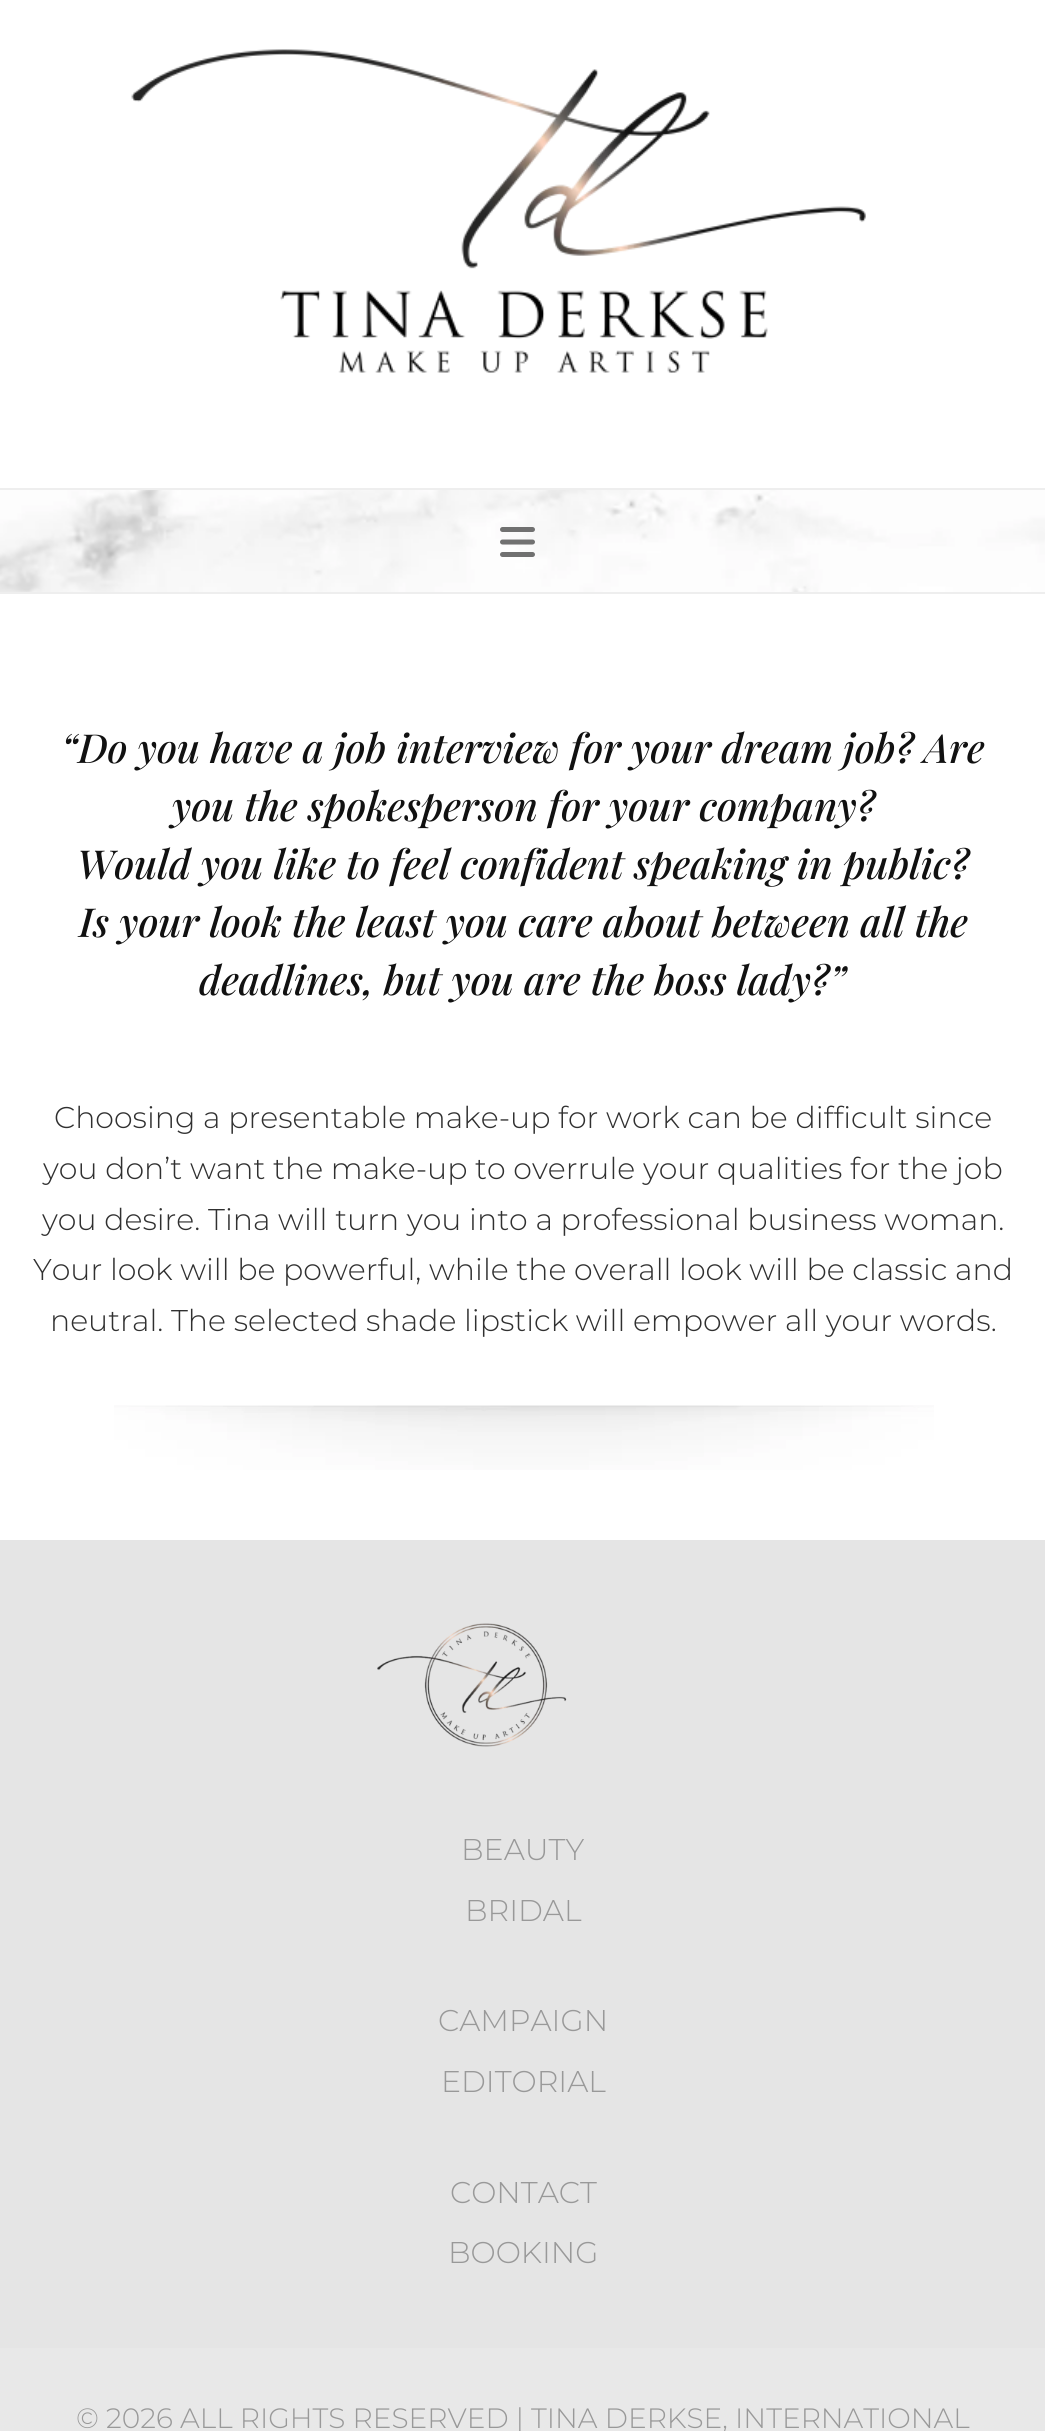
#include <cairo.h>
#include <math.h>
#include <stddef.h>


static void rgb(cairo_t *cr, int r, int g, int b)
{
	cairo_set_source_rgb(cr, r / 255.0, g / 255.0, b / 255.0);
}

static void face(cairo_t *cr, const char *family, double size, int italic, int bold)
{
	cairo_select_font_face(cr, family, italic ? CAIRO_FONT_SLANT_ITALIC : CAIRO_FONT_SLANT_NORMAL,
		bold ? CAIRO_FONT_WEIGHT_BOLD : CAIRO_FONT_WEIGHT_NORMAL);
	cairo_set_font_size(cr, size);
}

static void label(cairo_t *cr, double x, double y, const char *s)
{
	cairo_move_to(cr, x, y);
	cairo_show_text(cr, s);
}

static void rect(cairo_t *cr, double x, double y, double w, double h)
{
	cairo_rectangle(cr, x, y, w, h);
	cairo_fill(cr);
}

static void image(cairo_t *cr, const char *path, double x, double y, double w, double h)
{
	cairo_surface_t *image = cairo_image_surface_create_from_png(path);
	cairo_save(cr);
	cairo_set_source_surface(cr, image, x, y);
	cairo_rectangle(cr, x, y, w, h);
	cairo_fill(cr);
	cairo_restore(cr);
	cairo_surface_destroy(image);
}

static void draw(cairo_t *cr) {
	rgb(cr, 255, 255, 255);
	cairo_paint(cr);
	image(cr, "image0.png", 131, 49, 735, 324);
	image(cr, "image1.png", 0, 490, 1045, 102);
	rgb(cr, 238, 238, 238);
	rect(cr, 0, 488, 1045, 2);
	rect(cr, 0, 592, 1045, 2);
	image(cr, "image2.png", 500, 527, 35, 30);
	face(cr, "Playfair Display Medium", 40, 1, 0);
	rgb(cr, 17, 17, 17);
	label(cr, 61, 763, "“Do you have a job interview for your dream job? Are");
	label(cr, 172, 821, "you the spokesperson for your company?");
	label(cr, 77, 879, "Would you like to feel confident speaking in public?");
	label(cr, 79, 937, "Is your look the least you care about between all the");
	label(cr, 199, 995, "deadlines, but you are the boss lady?”");
	face(cr, "Montserrat Light", 30, 0, 0);
	rgb(cr, 48, 48, 48);
	label(cr, 54, 1128, "Choosing a presentable make-up for work can be difficult since");
	label(cr, 43, 1179, "you don’t want the make-up to overrule your qualities for the job");
	label(cr, 42, 1230, "you desire. Tina will turn you into a professional business woman.");
	label(cr, 33, 1280, "Your look will be powerful, while the overall look will be classic and");
	label(cr, 50, 1331, "neutral. The selected shade lipstick will empower all your words.");
	image(cr, "image3.png", 114, 1405, 820, 65);
	rgb(cr, 229, 229, 229);
	rect(cr, 0, 1540, 1045, 808);
	image(cr, "image4.png", 377, 1623, 190, 124);
	rgb(cr, 153, 153, 153);
	label(cr, 461, 1860, "BEAUTY");
	label(cr, 465, 1921, "BRIDAL");
	label(cr, 438, 2031, "CAMPAIGN");
	label(cr, 441, 2092, "EDITORIAL");
	label(cr, 450, 2203, "CONTACT");
	label(cr, 448, 2263, "BOOKING");
	rgb(cr, 232, 232, 232);
	rect(cr, 0, 2348, 1045, 83);
	face(cr, "Montserrat Light", 28, 0, 0);
	rgb(cr, 153, 153, 153);
	label(cr, 76, 2428, "© 2026 ALL RIGHTS RESERVED | TINA DERKSE, INTERNATIONAL");
}

int main(void) {
	cairo_surface_t *surface = cairo_image_surface_create(CAIRO_FORMAT_RGB24, 1045, 2431);
	cairo_t *cr = cairo_create(surface);
	cairo_font_options_t *options = cairo_font_options_create();
	cairo_font_options_set_hint_metrics(options, CAIRO_HINT_METRICS_OFF);
	cairo_font_options_set_hint_style(options, CAIRO_HINT_STYLE_NONE);
	cairo_set_font_options(cr, options);
	cairo_set_miter_limit(cr, 4);
	draw(cr);
	cairo_surface_write_to_png(surface, "render.png");
	cairo_font_options_destroy(options);
	cairo_destroy(cr);
	cairo_surface_destroy(surface);
	return 0;
}
